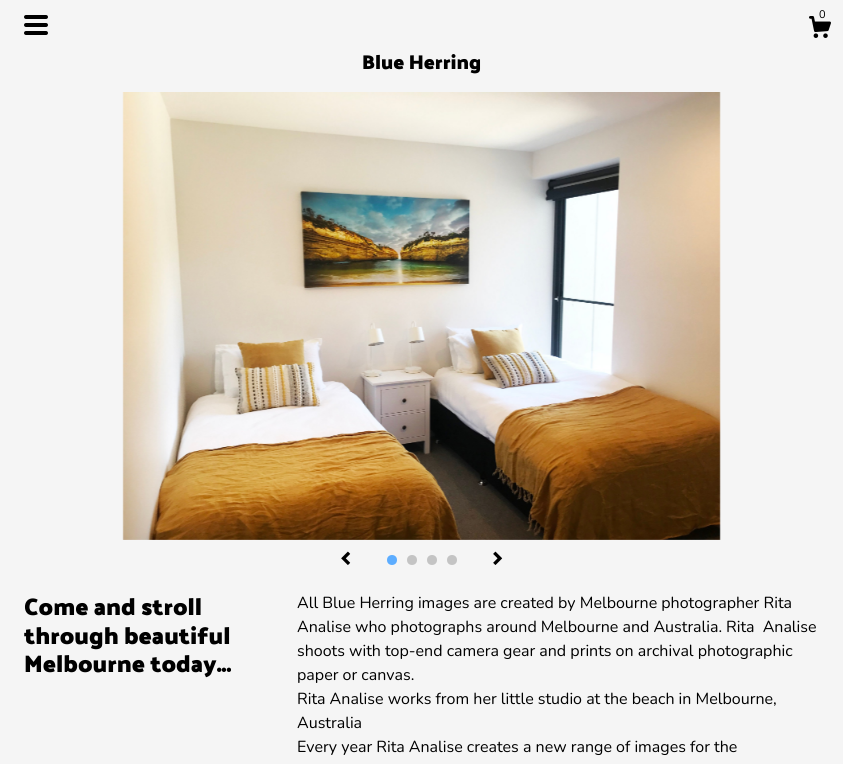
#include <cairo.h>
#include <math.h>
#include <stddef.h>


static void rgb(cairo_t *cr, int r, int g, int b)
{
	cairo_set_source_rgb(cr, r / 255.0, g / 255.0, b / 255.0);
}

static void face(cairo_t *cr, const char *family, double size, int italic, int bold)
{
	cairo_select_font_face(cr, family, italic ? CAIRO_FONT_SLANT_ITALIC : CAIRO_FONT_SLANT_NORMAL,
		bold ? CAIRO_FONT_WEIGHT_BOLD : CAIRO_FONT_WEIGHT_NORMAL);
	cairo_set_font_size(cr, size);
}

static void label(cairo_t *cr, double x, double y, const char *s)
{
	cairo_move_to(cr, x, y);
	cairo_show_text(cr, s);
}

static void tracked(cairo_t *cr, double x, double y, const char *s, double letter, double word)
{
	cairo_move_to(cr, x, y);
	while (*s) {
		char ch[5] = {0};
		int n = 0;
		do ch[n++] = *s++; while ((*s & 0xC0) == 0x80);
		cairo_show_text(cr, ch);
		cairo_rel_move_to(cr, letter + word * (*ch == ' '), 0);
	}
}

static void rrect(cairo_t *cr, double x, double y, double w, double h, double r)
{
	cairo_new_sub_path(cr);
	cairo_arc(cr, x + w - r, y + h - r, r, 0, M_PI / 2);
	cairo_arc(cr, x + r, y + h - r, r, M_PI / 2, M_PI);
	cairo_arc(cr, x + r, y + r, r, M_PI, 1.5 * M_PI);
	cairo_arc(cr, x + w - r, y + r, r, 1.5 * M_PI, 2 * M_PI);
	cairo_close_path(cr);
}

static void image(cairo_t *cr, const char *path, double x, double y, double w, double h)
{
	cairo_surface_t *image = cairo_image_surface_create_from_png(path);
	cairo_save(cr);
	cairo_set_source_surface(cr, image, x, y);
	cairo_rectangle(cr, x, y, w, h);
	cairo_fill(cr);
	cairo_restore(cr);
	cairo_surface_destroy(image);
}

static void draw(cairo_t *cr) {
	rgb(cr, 245, 245, 245);
	cairo_paint(cr);
	rgb(cr, 0, 0, 0);
	rrect(cr, 24, 15, 24, 4, 2);
	cairo_fill(cr);
	rrect(cr, 24, 23, 24, 4, 2);
	cairo_fill(cr);
	rrect(cr, 24, 31, 24, 4, 2);
	cairo_fill(cr);
	image(cr, "image0.png", 809, 16, 22, 22);
	face(cr, "Nunito", 11, 0, 0);
	label(cr, 819, 18, "0");
	face(cr, "Palanquin Dark", 20, 0, 1);
	label(cr, 362, 69, "Blue Herring");
	image(cr, "image1.png", 122, 92, 599, 448);
	image(cr, "image2.png", 341, 551, 10, 14);
	rgb(cr, 93, 173, 255);
	cairo_arc(cr, 392, 560, 5, 0, 2 * M_PI);
	cairo_fill(cr);
	rgb(cr, 196, 196, 196);
	cairo_arc(cr, 412, 560, 5, 0, 2 * M_PI);
	cairo_fill(cr);
	cairo_arc(cr, 432, 560, 5, 0, 2 * M_PI);
	cairo_fill(cr);
	cairo_arc(cr, 452, 560, 5, 0, 2 * M_PI);
	cairo_fill(cr);
	image(cr, "image3.png", 493, 551, 10, 14);
	face(cr, "Palanquin Dark", 24, 0, 1);
	rgb(cr, 0, 0, 0);
	label(cr, 24, 615, "Come and stroll");
	label(cr, 24, 644, "through beautiful");
	label(cr, 24, 672, "Melbourne today...");
	face(cr, "Nunito", 16, 0, 0);
	label(cr, 297, 608, "All Blue Herring images are created by Melbourne photographer Rita");
	label(cr, 297, 632, "Analise who photographs around Melbourne and Australia.");
	tracked(cr, 726, 632, "Rita Analise", 0, 4);
	label(cr, 297, 656, "shoots with top-end camera gear and prints on archival photographic");
	label(cr, 297, 680, "paper or canvas.");
	label(cr, 297, 704, "Rita Analise works from her little studio at the beach in Melbourne,");
	label(cr, 297, 728, "Australia");
	label(cr, 297, 752, "Every year Rita Analise creates a new range of images for the");
}

int main(void) {
	cairo_surface_t *surface = cairo_image_surface_create(CAIRO_FORMAT_RGB24, 843, 764);
	cairo_t *cr = cairo_create(surface);
	cairo_font_options_t *options = cairo_font_options_create();
	cairo_font_options_set_hint_metrics(options, CAIRO_HINT_METRICS_OFF);
	cairo_font_options_set_hint_style(options, CAIRO_HINT_STYLE_NONE);
	cairo_set_font_options(cr, options);
	cairo_set_miter_limit(cr, 4);
	draw(cr);
	cairo_surface_write_to_png(surface, "render.png");
	cairo_font_options_destroy(options);
	cairo_destroy(cr);
	cairo_surface_destroy(surface);
	return 0;
}
